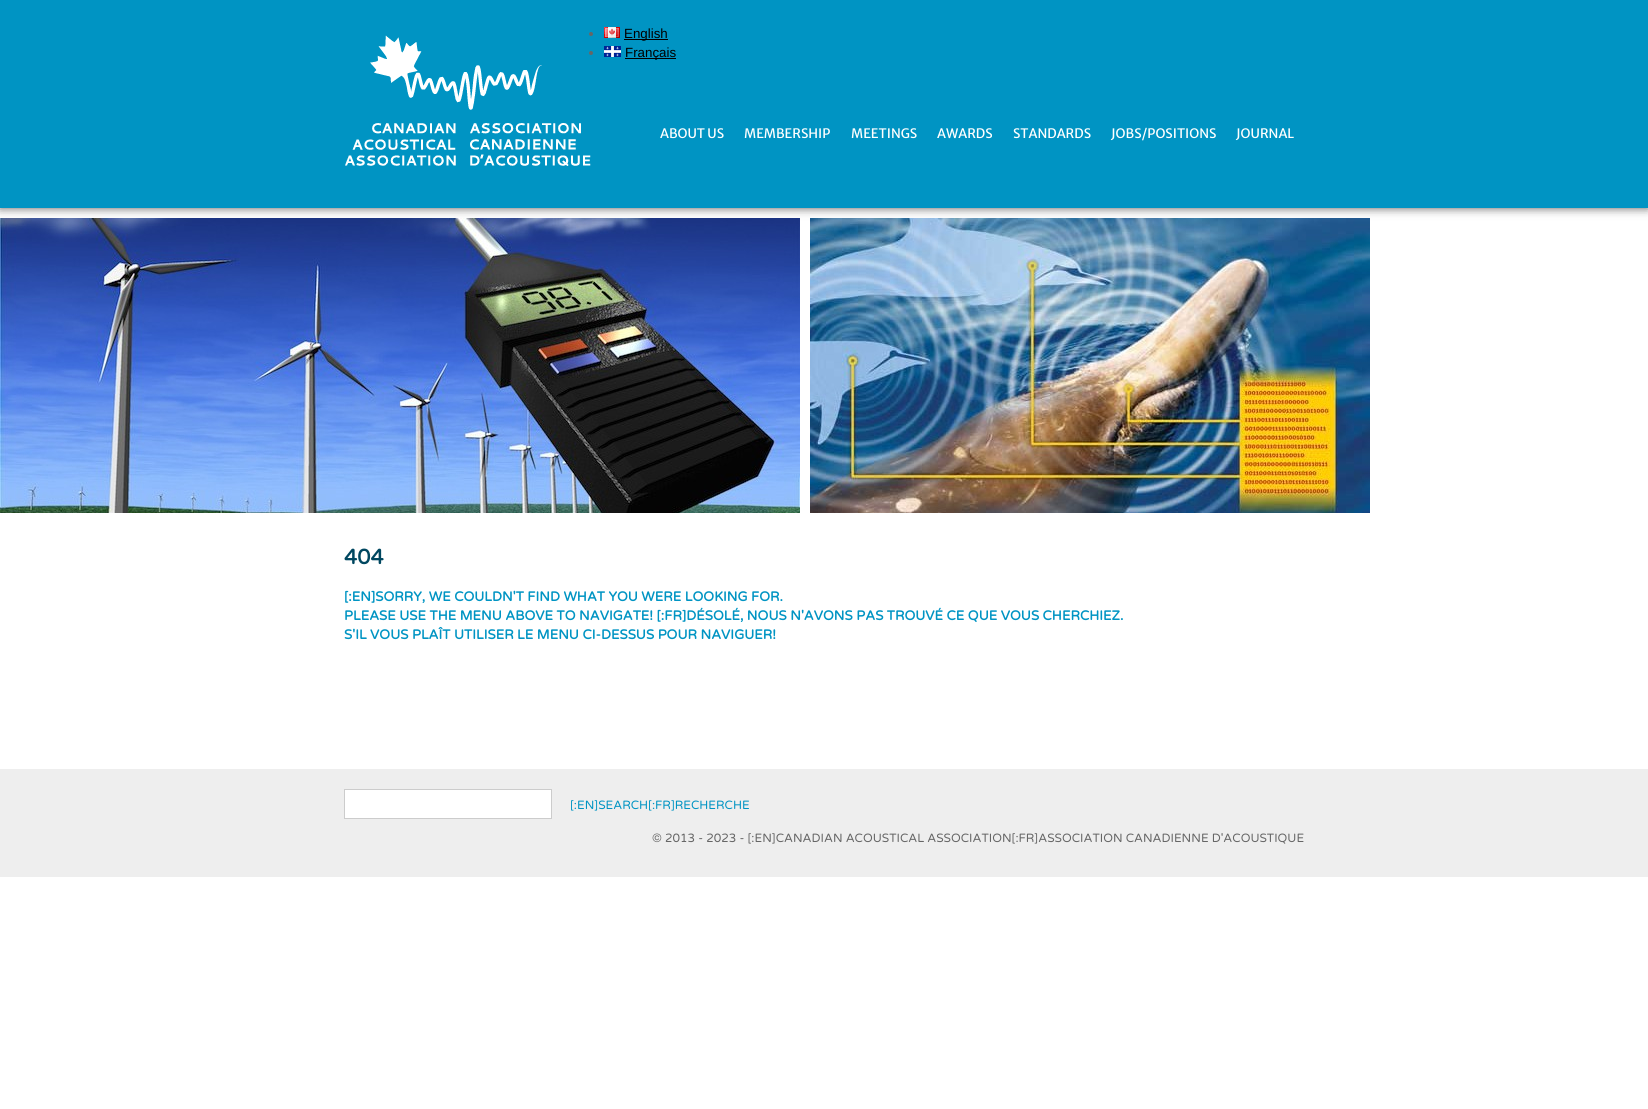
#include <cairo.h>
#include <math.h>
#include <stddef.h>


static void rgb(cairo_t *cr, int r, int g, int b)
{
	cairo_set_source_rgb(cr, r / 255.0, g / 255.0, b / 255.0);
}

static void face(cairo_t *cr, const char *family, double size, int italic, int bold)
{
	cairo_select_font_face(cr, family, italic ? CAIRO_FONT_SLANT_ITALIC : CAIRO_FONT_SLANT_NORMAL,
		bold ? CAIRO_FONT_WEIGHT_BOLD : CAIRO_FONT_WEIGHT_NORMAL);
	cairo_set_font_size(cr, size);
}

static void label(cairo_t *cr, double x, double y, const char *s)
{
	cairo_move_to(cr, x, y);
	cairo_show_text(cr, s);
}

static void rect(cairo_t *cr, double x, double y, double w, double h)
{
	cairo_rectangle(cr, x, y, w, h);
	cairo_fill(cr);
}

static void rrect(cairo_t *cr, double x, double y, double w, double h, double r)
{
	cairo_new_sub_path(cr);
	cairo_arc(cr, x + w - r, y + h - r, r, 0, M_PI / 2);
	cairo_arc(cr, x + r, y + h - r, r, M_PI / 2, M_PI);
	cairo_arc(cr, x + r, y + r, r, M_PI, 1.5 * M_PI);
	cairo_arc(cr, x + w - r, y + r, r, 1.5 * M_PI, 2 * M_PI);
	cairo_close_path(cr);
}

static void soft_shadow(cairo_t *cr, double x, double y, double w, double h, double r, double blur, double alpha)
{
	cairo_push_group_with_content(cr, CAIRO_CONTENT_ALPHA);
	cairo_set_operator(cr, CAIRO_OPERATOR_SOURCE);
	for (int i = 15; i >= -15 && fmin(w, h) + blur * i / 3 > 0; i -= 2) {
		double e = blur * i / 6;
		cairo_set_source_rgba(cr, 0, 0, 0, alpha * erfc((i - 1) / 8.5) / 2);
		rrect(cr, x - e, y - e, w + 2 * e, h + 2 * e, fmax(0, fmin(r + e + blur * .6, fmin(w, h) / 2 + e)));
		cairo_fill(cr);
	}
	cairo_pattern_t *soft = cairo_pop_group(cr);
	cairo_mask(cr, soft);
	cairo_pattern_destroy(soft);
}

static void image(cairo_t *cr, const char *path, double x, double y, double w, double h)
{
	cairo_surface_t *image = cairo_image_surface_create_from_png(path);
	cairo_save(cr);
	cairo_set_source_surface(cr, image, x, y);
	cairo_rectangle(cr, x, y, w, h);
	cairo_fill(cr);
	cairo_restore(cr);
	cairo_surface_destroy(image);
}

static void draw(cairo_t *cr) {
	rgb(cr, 255, 255, 255);
	cairo_paint(cr);
	rgb(cr, 50, 50, 50);
	soft_shadow(cr, 0, 0, 1648, 208, 0, 5, 0.8);
	rgb(cr, 0, 148, 195);
	rect(cr, 0, 0, 1648, 208);
	image(cr, "image0.png", 345, 35, 246, 131);
	rgb(cr, 102, 102, 102);
	cairo_arc(cr, 591, 34, 2, 0, 2 * M_PI);
	cairo_fill(cr);
	image(cr, "image1.png", 604, 27, 16, 11);
	rgb(cr, 0, 0, 0);
	rect(cr, 624, 39, 44, 1);
	face(cr, "Liberation Sans", 13.33, 0, 0);
	label(cr, 624, 38, "English");
	rgb(cr, 102, 102, 102);
	cairo_new_path(cr);
	cairo_arc(cr, 591, 53, 2, 0, 2 * M_PI);
	cairo_fill(cr);
	image(cr, "image2.png", 604, 46, 17, 11);
	rgb(cr, 0, 0, 0);
	rect(cr, 625, 58, 51, 1);
	label(cr, 625, 57, "Français");
	face(cr, "Merriweather Sans", 13, 0, 0);
	rgb(cr, 255, 255, 255);
	label(cr, 660, 138, "ABOUT US");
	label(cr, 744, 138, "MEMBERSHIP");
	label(cr, 851, 138, "MEETINGS");
	label(cr, 937, 138, "AWARDS");
	label(cr, 1013, 138, "STANDARDS");
	label(cr, 1111, 138, "JOBS/POSITIONS");
	label(cr, 1236, 138, "JOURNAL");
	image(cr, "image3.png", 0, 218, 800, 295);
	image(cr, "image4.png", 810, 218, 560, 295);
	face(cr, "Varela Round", 21, 0, 1);
	rgb(cr, 0, 71, 96);
	label(cr, 344, 564, "404");
	face(cr, "Varela Round", 13.33, 0, 1);
	rgb(cr, 0, 148, 195);
	label(cr, 344, 601, "[:EN]SORRY, WE COULDN'T FIND WHAT YOU WERE LOOKING FOR.");
	label(cr, 344, 620, "PLEASE USE THE MENU ABOVE TO NAVIGATE! [:FR]DÉSOLÉ, NOUS N'AVONS PAS TROUVÉ CE QUE VOUS CHERCHIEZ.");
	label(cr, 344, 639, "S'IL VOUS PLAÎT UTILISER LE MENU CI-DESSUS POUR NAVIGUER!");
	rgb(cr, 238, 238, 238);
	rect(cr, 0, 769, 1648, 108);
	rgb(cr, 255, 255, 255);
	cairo_rectangle(cr, 344.5, 789.5, 207, 29);
	cairo_fill_preserve(cr);
	rgb(cr, 204, 204, 204);
	cairo_set_line_width(cr, 1);
	cairo_stroke(cr);
	face(cr, "Varela Round", 12, 0, 0);
	rgb(cr, 0, 148, 195);
	label(cr, 570, 809, "[:EN]SEARCH[:FR]RECHERCHE");
	rgb(cr, 102, 102, 102);
	label(cr, 652, 842, "© 2013 - 2023 - [:EN]CANADIAN ACOUSTICAL ASSOCIATION[:FR]ASSOCIATION CANADIENNE D'ACOUSTIQUE");
}

int main(void) {
	cairo_surface_t *surface = cairo_image_surface_create(CAIRO_FORMAT_RGB24, 1648, 1109);
	cairo_t *cr = cairo_create(surface);
	cairo_font_options_t *options = cairo_font_options_create();
	cairo_font_options_set_hint_metrics(options, CAIRO_HINT_METRICS_OFF);
	cairo_font_options_set_hint_style(options, CAIRO_HINT_STYLE_NONE);
	cairo_set_font_options(cr, options);
	cairo_set_miter_limit(cr, 4);
	draw(cr);
	cairo_surface_write_to_png(surface, "render.png");
	cairo_font_options_destroy(options);
	cairo_destroy(cr);
	cairo_surface_destroy(surface);
	return 0;
}
